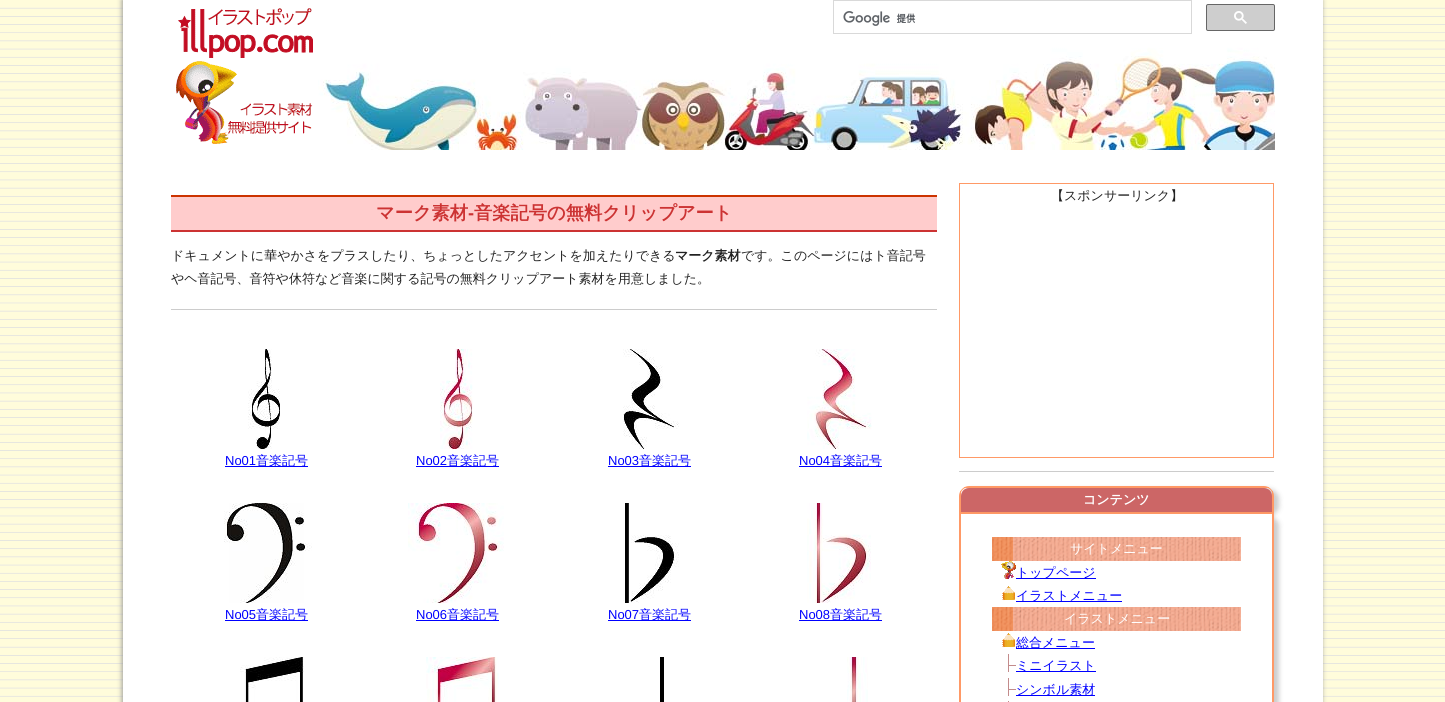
#include <cairo.h>
#include <math.h>
#include <stddef.h>


static void rgb(cairo_t *cr, int r, int g, int b)
{
	cairo_set_source_rgb(cr, r / 255.0, g / 255.0, b / 255.0);
}

static void face(cairo_t *cr, const char *family, double size, int italic, int bold)
{
	cairo_select_font_face(cr, family, italic ? CAIRO_FONT_SLANT_ITALIC : CAIRO_FONT_SLANT_NORMAL,
		bold ? CAIRO_FONT_WEIGHT_BOLD : CAIRO_FONT_WEIGHT_NORMAL);
	cairo_set_font_size(cr, size);
}

static void label(cairo_t *cr, double x, double y, const char *s)
{
	cairo_move_to(cr, x, y);
	cairo_show_text(cr, s);
}

static void rect(cairo_t *cr, double x, double y, double w, double h)
{
	cairo_rectangle(cr, x, y, w, h);
	cairo_fill(cr);
}

static void rrect(cairo_t *cr, double x, double y, double w, double h, double r)
{
	cairo_new_sub_path(cr);
	cairo_arc(cr, x + w - r, y + h - r, r, 0, M_PI / 2);
	cairo_arc(cr, x + r, y + h - r, r, M_PI / 2, M_PI);
	cairo_arc(cr, x + r, y + r, r, M_PI, 1.5 * M_PI);
	cairo_arc(cr, x + w - r, y + r, r, 1.5 * M_PI, 2 * M_PI);
	cairo_close_path(cr);
}

static void soft_shadow(cairo_t *cr, double x, double y, double w, double h, double r, double blur, double alpha)
{
	cairo_push_group_with_content(cr, CAIRO_CONTENT_ALPHA);
	cairo_set_operator(cr, CAIRO_OPERATOR_SOURCE);
	for (int i = 15; i >= -15 && fmin(w, h) + blur * i / 3 > 0; i -= 2) {
		double e = blur * i / 6;
		cairo_set_source_rgba(cr, 0, 0, 0, alpha * erfc((i - 1) / 8.5) / 2);
		rrect(cr, x - e, y - e, w + 2 * e, h + 2 * e, fmax(0, fmin(r + e + blur * .6, fmin(w, h) / 2 + e)));
		cairo_fill(cr);
	}
	cairo_pattern_t *soft = cairo_pop_group(cr);
	cairo_mask(cr, soft);
	cairo_pattern_destroy(soft);
}

static void image(cairo_t *cr, const char *path, double x, double y, double w, double h)
{
	cairo_surface_t *image = cairo_image_surface_create_from_png(path);
	cairo_save(cr);
	cairo_set_source_surface(cr, image, x, y);
	cairo_rectangle(cr, x, y, w, h);
	cairo_fill(cr);
	cairo_restore(cr);
	cairo_surface_destroy(image);
}

static void draw(cairo_t *cr) {
	rgb(cr, 255, 255, 255);
	cairo_paint(cr);
	image(cr, "image0.png", 0, 0, 1445, 702);
	rgb(cr, 153, 153, 153);
	soft_shadow(cr, 122, 0, 1200, 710, 0, 2.5, 1);
	rgb(cr, 255, 255, 255);
	rect(cr, 123, 0, 1200, 702);
	image(cr, "image1.png", 171, 16, 1104, 134);
	image(cr, "image2.png", 171, 8, 147, 137);
	cairo_rectangle(cr, 833.5, 0.5, 358, 33);
	rgb(cr, 217, 217, 217);
	cairo_set_line_width(cr, 1);
	cairo_stroke(cr);
	image(cr, "image3.png", 843, 11, 73, 15);
	rgb(cr, 206, 206, 206);
	rrect(cr, 1206.5, 4.5, 68, 26, 1.5);
	cairo_fill_preserve(cr);
	rgb(cr, 102, 102, 102);
	cairo_stroke(cr);
	image(cr, "image4.png", 1234, 11, 13, 13);
	rgb(cr, 255, 204, 204);
	rect(cr, 171, 197, 766, 33);
	rgb(cr, 204, 51, 0);
	rect(cr, 171, 195, 766, 2);
	rgb(cr, 204, 51, 51);
	rect(cr, 171, 230, 766, 2);
	face(cr, "WenQuanYi Zen Hei", 18.25, 0, 1);
	label(cr, 376, 219, "マーク素材");
	face(cr, "Liberation Sans", 18.25, 0, 1);
	label(cr, 468, 219, "-");
	face(cr, "WenQuanYi Zen Hei", 18.25, 0, 1);
	label(cr, 474, 219, "音楽記号の無料クリップアート");
	face(cr, "WenQuanYi Zen Hei Medium", 13, 0, 0);
	rgb(cr, 34, 34, 34);
	label(cr, 171, 260, "ドキュメントに華やかさをプラスしたり、ちょっとしたアクセントを加えたりできる");
	face(cr, "WenQuanYi Zen Hei", 13, 0, 1);
	label(cr, 675, 260, "マーク素材");
	face(cr, "WenQuanYi Zen Hei Medium", 13, 0, 0);
	label(cr, 741, 260, "です。このページにはト音記号");
	label(cr, 171, 283, "やヘ音記号、音符や休符など音楽に関する記号の無料クリップアート素材を用意しました。");
	rgb(cr, 204, 204, 204);
	rect(cr, 171, 309, 766, 1);
	image(cr, "image5.png", 248, 349, 32, 100);
	face(cr, "Liberation Sans", 13, 0, 0);
	rgb(cr, 0, 0, 255);
	label(cr, 225, 465, "No01");
	rect(cr, 225, 466, 83, 1);
	face(cr, "WenQuanYi Zen Hei Medium", 13, 0, 0);
	label(cr, 256, 465, "音楽記号");
	image(cr, "image6.png", 440, 349, 33, 100);
	face(cr, "Liberation Sans", 13, 0, 0);
	label(cr, 416, 465, "No02");
	rect(cr, 416, 466, 83, 1);
	face(cr, "WenQuanYi Zen Hei Medium", 13, 0, 0);
	label(cr, 447, 465, "音楽記号");
	image(cr, "image7.png", 623, 349, 56, 100);
	face(cr, "Liberation Sans", 13, 0, 0);
	label(cr, 608, 465, "No03");
	rect(cr, 608, 466, 83, 1);
	face(cr, "WenQuanYi Zen Hei Medium", 13, 0, 0);
	label(cr, 639, 465, "音楽記号");
	image(cr, "image8.png", 807, 349, 65, 100);
	face(cr, "Liberation Sans", 13, 0, 0);
	label(cr, 799, 465, "No04");
	rect(cr, 799, 466, 83, 1);
	face(cr, "WenQuanYi Zen Hei Medium", 13, 0, 0);
	label(cr, 830, 465, "音楽記号");
	image(cr, "image9.png", 224, 503, 88, 100);
	face(cr, "Liberation Sans", 13, 0, 0);
	label(cr, 225, 619, "No05");
	rect(cr, 225, 620, 83, 1);
	face(cr, "WenQuanYi Zen Hei Medium", 13, 0, 0);
	label(cr, 256, 619, "音楽記号");
	image(cr, "image10.png", 408, 503, 96, 100);
	face(cr, "Liberation Sans", 13, 0, 0);
	label(cr, 416, 619, "No06");
	rect(cr, 416, 620, 83, 1);
	face(cr, "WenQuanYi Zen Hei Medium", 13, 0, 0);
	label(cr, 447, 619, "音楽記号");
	image(cr, "image11.png", 623, 503, 56, 100);
	face(cr, "Liberation Sans", 13, 0, 0);
	label(cr, 608, 619, "No07");
	rect(cr, 608, 620, 83, 1);
	face(cr, "WenQuanYi Zen Hei Medium", 13, 0, 0);
	label(cr, 639, 619, "音楽記号");
	image(cr, "image12.png", 807, 503, 64, 100);
	face(cr, "Liberation Sans", 13, 0, 0);
	label(cr, 799, 619, "No08");
	rect(cr, 799, 620, 83, 1);
	face(cr, "WenQuanYi Zen Hei Medium", 13, 0, 0);
	label(cr, 830, 619, "音楽記号");
	image(cr, "image13.png", 240, 657, 64, 45);
	image(cr, "image14.png", 426, 657, 73, 45);
	rgb(cr, 0, 0, 0);
	rect(cr, 660, 657, 4, 45);
	image(cr, "image15.png", 847, 657, 21, 45);
	cairo_rectangle(cr, 959.5, 183.5, 314, 274);
	rgb(cr, 255, 153, 102);
	cairo_stroke(cr);
	rgb(cr, 34, 34, 34);
	label(cr, 1051, 200, "【スポンサーリンク】");
	rgb(cr, 204, 204, 204);
	rect(cr, 959, 471, 315, 1);
	rgb(cr, 0, 0, 0);
	soft_shadow(cr, 964, 489, 315, 27, 10, 2.5, 0.2);
	rgb(cr, 204, 102, 102);
	cairo_new_path(cr);
	cairo_move_to(cr, 969, 488);
	cairo_line_to(cr, 1264, 488);
	cairo_curve_to(cr, 1268.5, 488, 1272, 491.5, 1272, 496);
	cairo_line_to(cr, 1272, 512);
	cairo_line_to(cr, 961, 512);
	cairo_line_to(cr, 961, 496);
	cairo_curve_to(cr, 961, 491.5, 964.5, 488, 969, 488);
	cairo_close_path(cr);
	cairo_fill(cr);
	cairo_new_path(cr);
	cairo_move_to(cr, 969, 486.5);
	cairo_line_to(cr, 1264, 486.5);
	cairo_curve_to(cr, 1269, 486.5, 1273.5, 491, 1273.5, 496);
	cairo_line_to(cr, 1273.5, 512.5);
	cairo_line_to(cr, 959.5, 512.5);
	cairo_line_to(cr, 959.5, 496);
	cairo_curve_to(cr, 959.5, 491, 964, 486.5, 969, 486.5);
	cairo_close_path(cr);
	rgb(cr, 255, 153, 102);
	cairo_stroke(cr);
	rect(cr, 964, 487, 305, 1);
	rect(cr, 1272, 491, 1, 22);
	rect(cr, 960, 491, 1, 22);
	face(cr, "WenQuanYi Zen Hei", 13, 0, 1);
	rgb(cr, 255, 255, 255);
	label(cr, 1083, 504, "コンテンツ");
	rgb(cr, 0, 0, 0);
	soft_shadow(cr, 964, 516, 315, 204, 10, 2.5, 0.2);
	rgb(cr, 255, 255, 255);
	rect(cr, 961, 514, 311, 188);
	cairo_rectangle(cr, 959.5, 513.5, 314, 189);
	rgb(cr, 255, 153, 102);
	cairo_stroke(cr);
	rect(cr, 1272, 513, 1, 189);
	rect(cr, 960, 513, 1, 189);
	image(cr, "image16.png", 992, 537, 249, 24);
	face(cr, "WenQuanYi Zen Hei Medium", 13, 0, 0);
	rgb(cr, 255, 255, 255);
	label(cr, 1070, 553, "サイトメニュー");
	image(cr, "image17.png", 1001, 561, 15, 18);
	rgb(cr, 0, 0, 255);
	rect(cr, 1016, 578, 80, 1);
	label(cr, 1016, 577, "トップページ");
	image(cr, "image18.png", 1002, 586, 13, 15);
	rect(cr, 1016, 601, 106, 1);
	label(cr, 1016, 600, "イラストメニュー");
	image(cr, "image16.png", 992, 607, 249, 24);
	rgb(cr, 255, 255, 255);
	label(cr, 1064, 623, "イラストメニュー");
	image(cr, "image18.png", 1002, 633, 13, 15);
	rgb(cr, 0, 0, 255);
	rect(cr, 1016, 648, 79, 1);
	label(cr, 1016, 647, "総合メニュー");
	image(cr, "image19.png", 1008, 654, 8, 18);
	rect(cr, 1016, 671, 80, 1);
	label(cr, 1016, 670, "ミニイラスト");
	image(cr, "image19.png", 1008, 678, 8, 18);
	rect(cr, 1016, 695, 79, 1);
	label(cr, 1016, 694, "シンボル素材");
	rgb(cr, 195, 139, 139);
	rect(cr, 1008, 701, 1, 1);
}

int main(void) {
	cairo_surface_t *surface = cairo_image_surface_create(CAIRO_FORMAT_RGB24, 1445, 702);
	cairo_t *cr = cairo_create(surface);
	cairo_font_options_t *options = cairo_font_options_create();
	cairo_font_options_set_hint_metrics(options, CAIRO_HINT_METRICS_OFF);
	cairo_font_options_set_hint_style(options, CAIRO_HINT_STYLE_NONE);
	cairo_set_font_options(cr, options);
	cairo_set_miter_limit(cr, 4);
	draw(cr);
	cairo_surface_write_to_png(surface, "render.png");
	cairo_font_options_destroy(options);
	cairo_destroy(cr);
	cairo_surface_destroy(surface);
	return 0;
}
